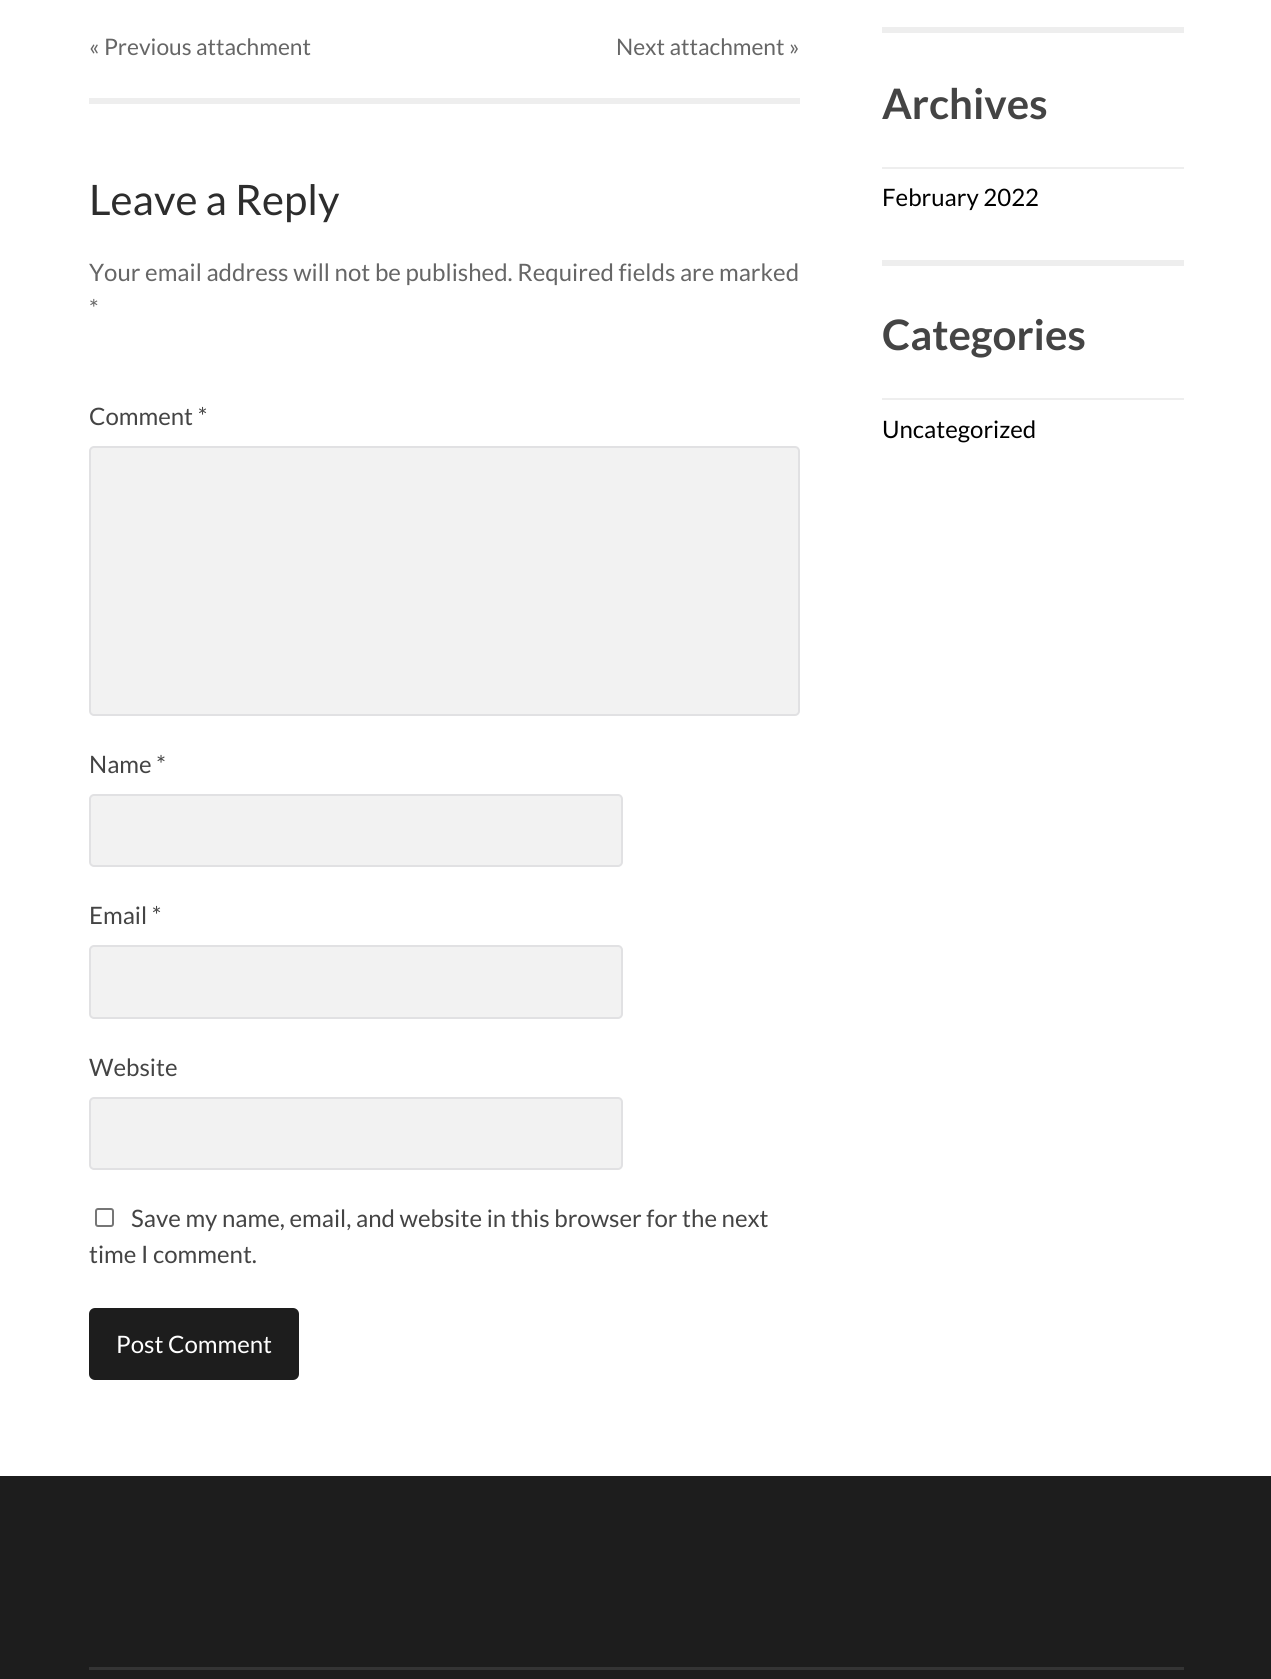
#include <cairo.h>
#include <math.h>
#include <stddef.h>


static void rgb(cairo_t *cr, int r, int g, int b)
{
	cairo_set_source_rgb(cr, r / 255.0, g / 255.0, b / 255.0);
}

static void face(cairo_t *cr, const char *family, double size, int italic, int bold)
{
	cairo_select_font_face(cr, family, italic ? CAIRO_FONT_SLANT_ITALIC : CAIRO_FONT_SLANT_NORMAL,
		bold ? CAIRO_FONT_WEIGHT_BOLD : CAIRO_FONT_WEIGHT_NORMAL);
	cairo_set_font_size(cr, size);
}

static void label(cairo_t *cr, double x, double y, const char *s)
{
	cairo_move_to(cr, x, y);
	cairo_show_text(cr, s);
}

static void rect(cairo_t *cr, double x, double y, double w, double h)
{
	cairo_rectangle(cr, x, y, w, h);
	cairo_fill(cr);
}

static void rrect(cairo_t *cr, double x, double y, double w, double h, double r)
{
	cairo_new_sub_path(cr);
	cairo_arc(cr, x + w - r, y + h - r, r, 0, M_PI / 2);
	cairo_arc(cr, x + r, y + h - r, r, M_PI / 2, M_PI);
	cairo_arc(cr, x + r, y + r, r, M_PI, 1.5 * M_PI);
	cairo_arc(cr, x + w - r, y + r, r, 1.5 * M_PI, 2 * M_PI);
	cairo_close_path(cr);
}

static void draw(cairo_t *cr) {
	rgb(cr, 255, 255, 255);
	cairo_paint(cr);
	rgb(cr, 238, 238, 238);
	rect(cr, 89, 98, 711, 6);
	face(cr, "Lato", 22.75, 0, 0);
	rgb(cr, 102, 102, 102);
	label(cr, 89, 55, "« Previous attachment");
	label(cr, 616, 55, "Next attachment »");
	face(cr, "Lato", 42, 0, 0);
	rgb(cr, 45, 45, 45);
	label(cr, 89, 215, "Leave a Reply");
	face(cr, "Lato", 24, 0, 0);
	rgb(cr, 102, 102, 102);
	label(cr, 89, 281, "Your email address will not be published. Required fields are marked");
	label(cr, 89, 317, "*");
	rgb(cr, 68, 68, 68);
	label(cr, 89, 425, "Comment *");
	rgb(cr, 242, 242, 242);
	rrect(cr, 90, 447, 709, 268, 4);
	cairo_fill_preserve(cr);
	rgb(cr, 225, 225, 227);
	cairo_stroke(cr);
	rgb(cr, 68, 68, 68);
	label(cr, 89, 773, "Name *");
	rgb(cr, 242, 242, 242);
	rrect(cr, 90, 795, 532, 71, 4);
	cairo_fill_preserve(cr);
	rgb(cr, 225, 225, 227);
	cairo_stroke(cr);
	rgb(cr, 68, 68, 68);
	label(cr, 89, 924, "Email *");
	rgb(cr, 242, 242, 242);
	rrect(cr, 90, 946, 532, 72, 4);
	cairo_fill_preserve(cr);
	rgb(cr, 225, 225, 227);
	cairo_stroke(cr);
	rgb(cr, 68, 68, 68);
	label(cr, 89, 1076, "Website");
	rgb(cr, 242, 242, 242);
	rrect(cr, 90, 1098, 532, 71, 4);
	cairo_fill_preserve(cr);
	rgb(cr, 225, 225, 227);
	cairo_stroke(cr);
	rrect(cr, 96, 1209, 17, 17, 2);
	rgb(cr, 118, 118, 118);
	cairo_stroke(cr);
	rgb(cr, 68, 68, 68);
	label(cr, 131, 1227, "Save my name, email, and website in this browser for the next");
	label(cr, 89, 1263, "time I comment.");
	rgb(cr, 29, 29, 29);
	rrect(cr, 89, 1308, 210, 72, 6);
	cairo_fill(cr);
	rgb(cr, 255, 255, 255);
	label(cr, 116, 1353, "Post Comment");
	rgb(cr, 238, 238, 238);
	rect(cr, 882, 27, 302, 6);
	rect(cr, 882, 260, 302, 6);
	face(cr, "Lato", 42, 0, 1);
	rgb(cr, 68, 68, 68);
	label(cr, 882, 119, "Archives");
	rgb(cr, 238, 238, 238);
	rect(cr, 882, 167, 302, 2);
	face(cr, "Lato", 24, 0, 0);
	rgb(cr, 0, 0, 0);
	label(cr, 882, 206, "February 2022");
	face(cr, "Lato", 42, 0, 1);
	rgb(cr, 68, 68, 68);
	label(cr, 882, 350, "Categories");
	rgb(cr, 238, 238, 238);
	rect(cr, 882, 398, 302, 2);
	face(cr, "Lato", 24, 0, 0);
	rgb(cr, 0, 0, 0);
	label(cr, 882, 438, "Uncategorized");
	rgb(cr, 29, 29, 29);
	rect(cr, 0, 1476, 1271, 203);
	rgb(cr, 52, 52, 52);
	rect(cr, 89, 1667, 1095, 3);
}

int main(void) {
	cairo_surface_t *surface = cairo_image_surface_create(CAIRO_FORMAT_RGB24, 1271, 1679);
	cairo_t *cr = cairo_create(surface);
	cairo_font_options_t *options = cairo_font_options_create();
	cairo_font_options_set_hint_metrics(options, CAIRO_HINT_METRICS_OFF);
	cairo_font_options_set_hint_style(options, CAIRO_HINT_STYLE_NONE);
	cairo_set_font_options(cr, options);
	cairo_set_miter_limit(cr, 4);
	draw(cr);
	cairo_surface_write_to_png(surface, "render.png");
	cairo_font_options_destroy(options);
	cairo_destroy(cr);
	cairo_surface_destroy(surface);
	return 0;
}
